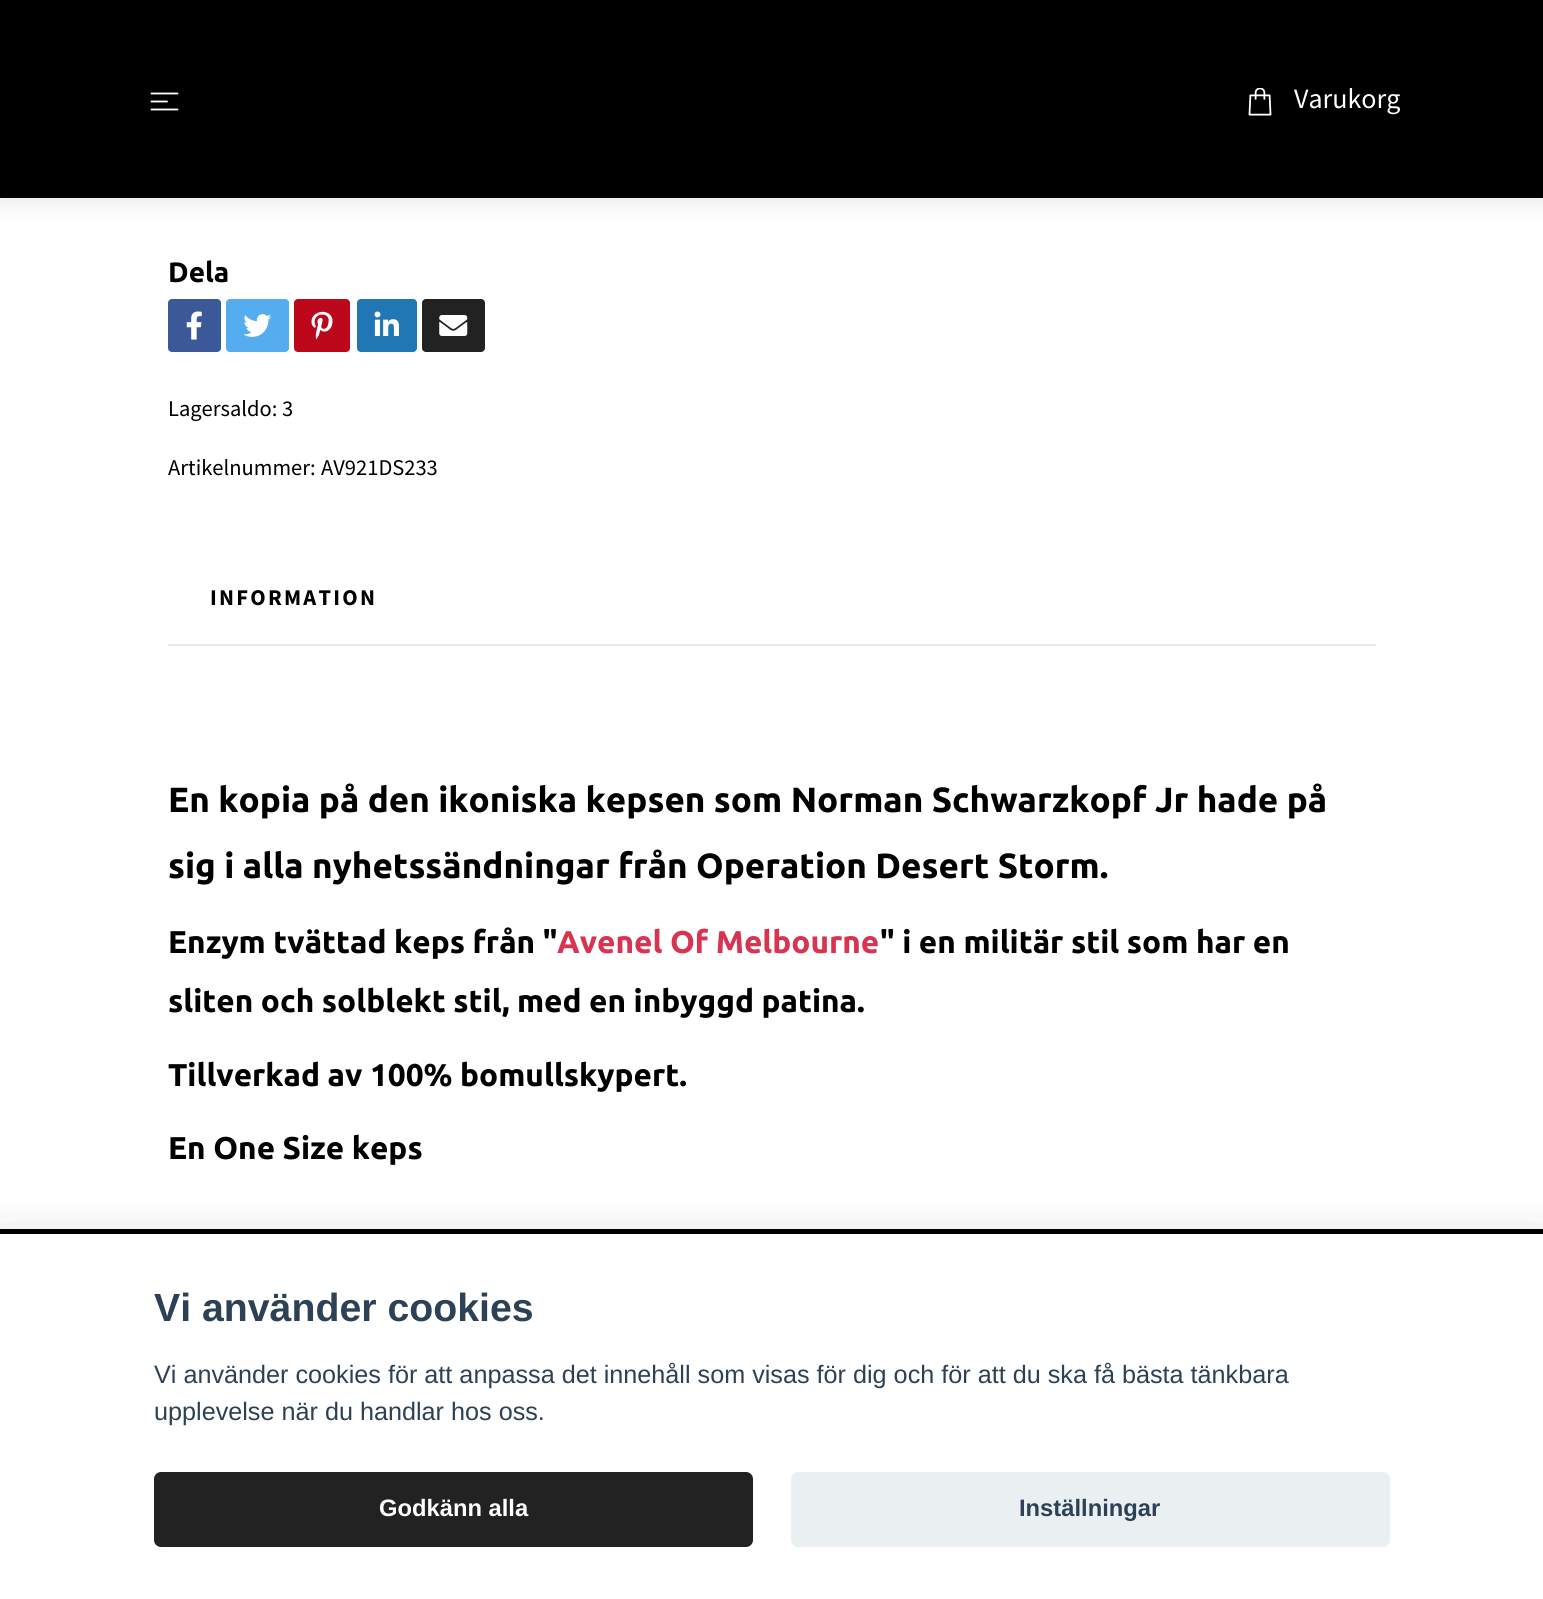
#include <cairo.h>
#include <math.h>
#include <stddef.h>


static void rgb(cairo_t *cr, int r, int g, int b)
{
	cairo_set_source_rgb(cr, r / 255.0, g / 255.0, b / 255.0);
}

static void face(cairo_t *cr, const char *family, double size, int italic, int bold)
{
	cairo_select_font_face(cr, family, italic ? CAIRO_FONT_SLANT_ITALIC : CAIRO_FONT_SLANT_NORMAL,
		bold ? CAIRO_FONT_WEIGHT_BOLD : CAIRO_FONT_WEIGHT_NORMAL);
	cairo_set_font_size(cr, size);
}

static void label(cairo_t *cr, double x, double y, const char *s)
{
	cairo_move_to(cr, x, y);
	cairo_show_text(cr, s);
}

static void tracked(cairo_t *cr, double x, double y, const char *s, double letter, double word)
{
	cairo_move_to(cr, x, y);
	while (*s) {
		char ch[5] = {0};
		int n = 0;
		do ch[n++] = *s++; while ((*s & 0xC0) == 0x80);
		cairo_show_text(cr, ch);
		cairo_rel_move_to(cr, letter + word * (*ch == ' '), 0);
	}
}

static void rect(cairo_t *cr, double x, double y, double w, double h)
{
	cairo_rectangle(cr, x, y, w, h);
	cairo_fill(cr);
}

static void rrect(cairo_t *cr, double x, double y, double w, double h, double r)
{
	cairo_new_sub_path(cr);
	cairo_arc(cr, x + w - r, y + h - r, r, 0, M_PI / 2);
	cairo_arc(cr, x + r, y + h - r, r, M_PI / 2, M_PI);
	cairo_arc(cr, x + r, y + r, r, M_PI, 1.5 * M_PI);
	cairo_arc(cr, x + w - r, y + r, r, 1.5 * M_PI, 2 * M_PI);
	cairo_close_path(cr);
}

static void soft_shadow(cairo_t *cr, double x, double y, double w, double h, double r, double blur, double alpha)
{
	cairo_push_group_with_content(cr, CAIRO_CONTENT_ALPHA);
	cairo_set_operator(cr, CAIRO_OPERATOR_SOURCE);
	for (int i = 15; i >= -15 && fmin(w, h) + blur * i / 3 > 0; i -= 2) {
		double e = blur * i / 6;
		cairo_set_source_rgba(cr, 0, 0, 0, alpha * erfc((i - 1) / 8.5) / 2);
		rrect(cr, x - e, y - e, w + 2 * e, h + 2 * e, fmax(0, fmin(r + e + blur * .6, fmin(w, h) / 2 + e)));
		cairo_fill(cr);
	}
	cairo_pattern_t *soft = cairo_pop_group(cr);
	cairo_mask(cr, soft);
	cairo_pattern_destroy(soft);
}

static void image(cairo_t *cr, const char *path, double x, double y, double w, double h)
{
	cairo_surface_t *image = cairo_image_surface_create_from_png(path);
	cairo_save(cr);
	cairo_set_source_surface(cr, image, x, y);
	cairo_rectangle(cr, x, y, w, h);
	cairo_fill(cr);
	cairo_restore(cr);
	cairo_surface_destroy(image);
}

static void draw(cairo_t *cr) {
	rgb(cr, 255, 255, 255);
	cairo_paint(cr);
	rgb(cr, 34, 34, 34);
	soft_shadow(cr, 0, 0, 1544, 198, 0, 14, 0.15);
	rgb(cr, 0, 0, 0);
	rect(cr, 0, 0, 1543, 198);
	cairo_new_path(cr);
	cairo_move_to(cr, 151.5, 93.5);
	cairo_line_to(cr, 177.5, 93.5);
	cairo_move_to(cr, 151.5, 101.5);
	cairo_line_to(cr, 167, 101.5);
	cairo_move_to(cr, 151.5, 109.5);
	cairo_line_to(cr, 177.5, 109.5);
	rgb(cr, 255, 255, 255);
	cairo_set_line_width(cr, 1.8);
	cairo_set_line_cap(cr, CAIRO_LINE_CAP_ROUND);
	cairo_set_line_join(cr, CAIRO_LINE_JOIN_ROUND);
	cairo_stroke(cr);
	image(cr, "image0.png", 1248, 88, 24, 28);
	face(cr, "Source Sans Pro", 28, 0, 0);
	label(cr, 1294, 108, "Varukorg");
	face(cr, "Ubuntu", 28, 0, 1);
	rgb(cr, 0, 0, 0);
	label(cr, 168, 282, "Dela");
	rgb(cr, 59, 89, 152);
	rrect(cr, 168, 299, 53, 53, 4);
	cairo_fill(cr);
	image(cr, "image1.png", 186, 311, 16, 29);
	rgb(cr, 85, 172, 238);
	rrect(cr, 226, 299, 63, 53, 4);
	cairo_fill(cr);
	image(cr, "image2.png", 243, 314, 28, 23);
	rgb(cr, 189, 8, 28);
	rrect(cr, 294, 299, 56, 53, 4);
	cairo_fill(cr);
	image(cr, "image3.png", 311, 311, 22, 29);
	rgb(cr, 33, 119, 180);
	rrect(cr, 357, 299, 60, 53, 4);
	cairo_fill(cr);
	image(cr, "image4.png", 374, 311, 25, 25);
	rgb(cr, 34, 34, 34);
	rrect(cr, 422, 299, 63, 53, 4);
	cairo_fill(cr);
	image(cr, "image5.png", 439, 315, 29, 21);
	face(cr, "Source Sans Pro", 22.5, 0, 0);
	rgb(cr, 0, 0, 0);
	label(cr, 168, 416, "Lagersaldo:");
	label(cr, 282, 416, "3");
	label(cr, 168, 475, "Artikelnummer:");
	label(cr, 321, 475, "AV921DS233");
	rgb(cr, 233, 233, 233);
	rect(cr, 168, 644, 1208, 2);
	face(cr, "Source Sans Pro", 22.5, 0, 1);
	rgb(cr, 0, 0, 0);
	tracked(cr, 210, 605, "INFORMATION", 2.25, 0);
	face(cr, "Ubuntu", 35, 0, 1);
	label(cr, 168, 812, "En kopia på den ikoniska kepsen som Norman Schwarzkopf Jr hade på");
	label(cr, 168, 878, "sig i alla nyhetssändningar från Operation Desert Storm.");
	face(cr, "Ubuntu", 31.5, 0, 1);
	label(cr, 168, 953, "Enzym tvättad keps från \"");
	rgb(cr, 216, 52, 81);
	label(cr, 557, 953, "Avenel Of Melbourne");
	rgb(cr, 0, 0, 0);
	label(cr, 880, 953, "\" i en militär stil som har en");
	label(cr, 168, 1012, "sliten och solblekt stil, med en inbyggd patina.");
	label(cr, 168, 1086, "Tillverkad av 100% bomullskypert.");
	label(cr, 168, 1159, "En One Size keps");
	rect(cr, 0, 1229, 1543, 5);
	rgb(cr, 2, 2, 3);
	soft_shadow(cr, 0, 1251, 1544, 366, 0, 26, 0.28);
	rgb(cr, 255, 255, 255);
	rect(cr, 0, 1234, 1543, 365);
	face(cr, "Liberation Sans", 39.25, 0, 1);
	rgb(cr, 45, 65, 86);
	label(cr, 154, 1321, "Vi använder cookies");
	face(cr, "Liberation Sans", 25.2, 0, 0);
	label(cr, 154, 1383, "Vi använder cookies för att anpassa det innehåll som visas för dig och för att du ska få bästa tänkbara");
	label(cr, 154, 1420, "upplevelse när du handlar hos oss.");
	rgb(cr, 34, 34, 34);
	rrect(cr, 154, 1472, 599, 75, 7);
	cairo_fill(cr);
	face(cr, "Liberation Sans", 23.75, 0, 1);
	rgb(cr, 255, 255, 255);
	label(cr, 379, 1516, "Godkänn alla");
	rgb(cr, 234, 239, 242);
	rrect(cr, 791, 1472, 599, 75, 7);
	cairo_fill(cr);
	rgb(cr, 45, 65, 86);
	label(cr, 1019, 1516, "Inställningar");
}

int main(void) {
	cairo_surface_t *surface = cairo_image_surface_create(CAIRO_FORMAT_RGB24, 1543, 1599);
	cairo_t *cr = cairo_create(surface);
	cairo_font_options_t *options = cairo_font_options_create();
	cairo_font_options_set_hint_metrics(options, CAIRO_HINT_METRICS_OFF);
	cairo_font_options_set_hint_style(options, CAIRO_HINT_STYLE_NONE);
	cairo_set_font_options(cr, options);
	cairo_set_miter_limit(cr, 4);
	draw(cr);
	cairo_surface_write_to_png(surface, "render.png");
	cairo_font_options_destroy(options);
	cairo_destroy(cr);
	cairo_surface_destroy(surface);
	return 0;
}
